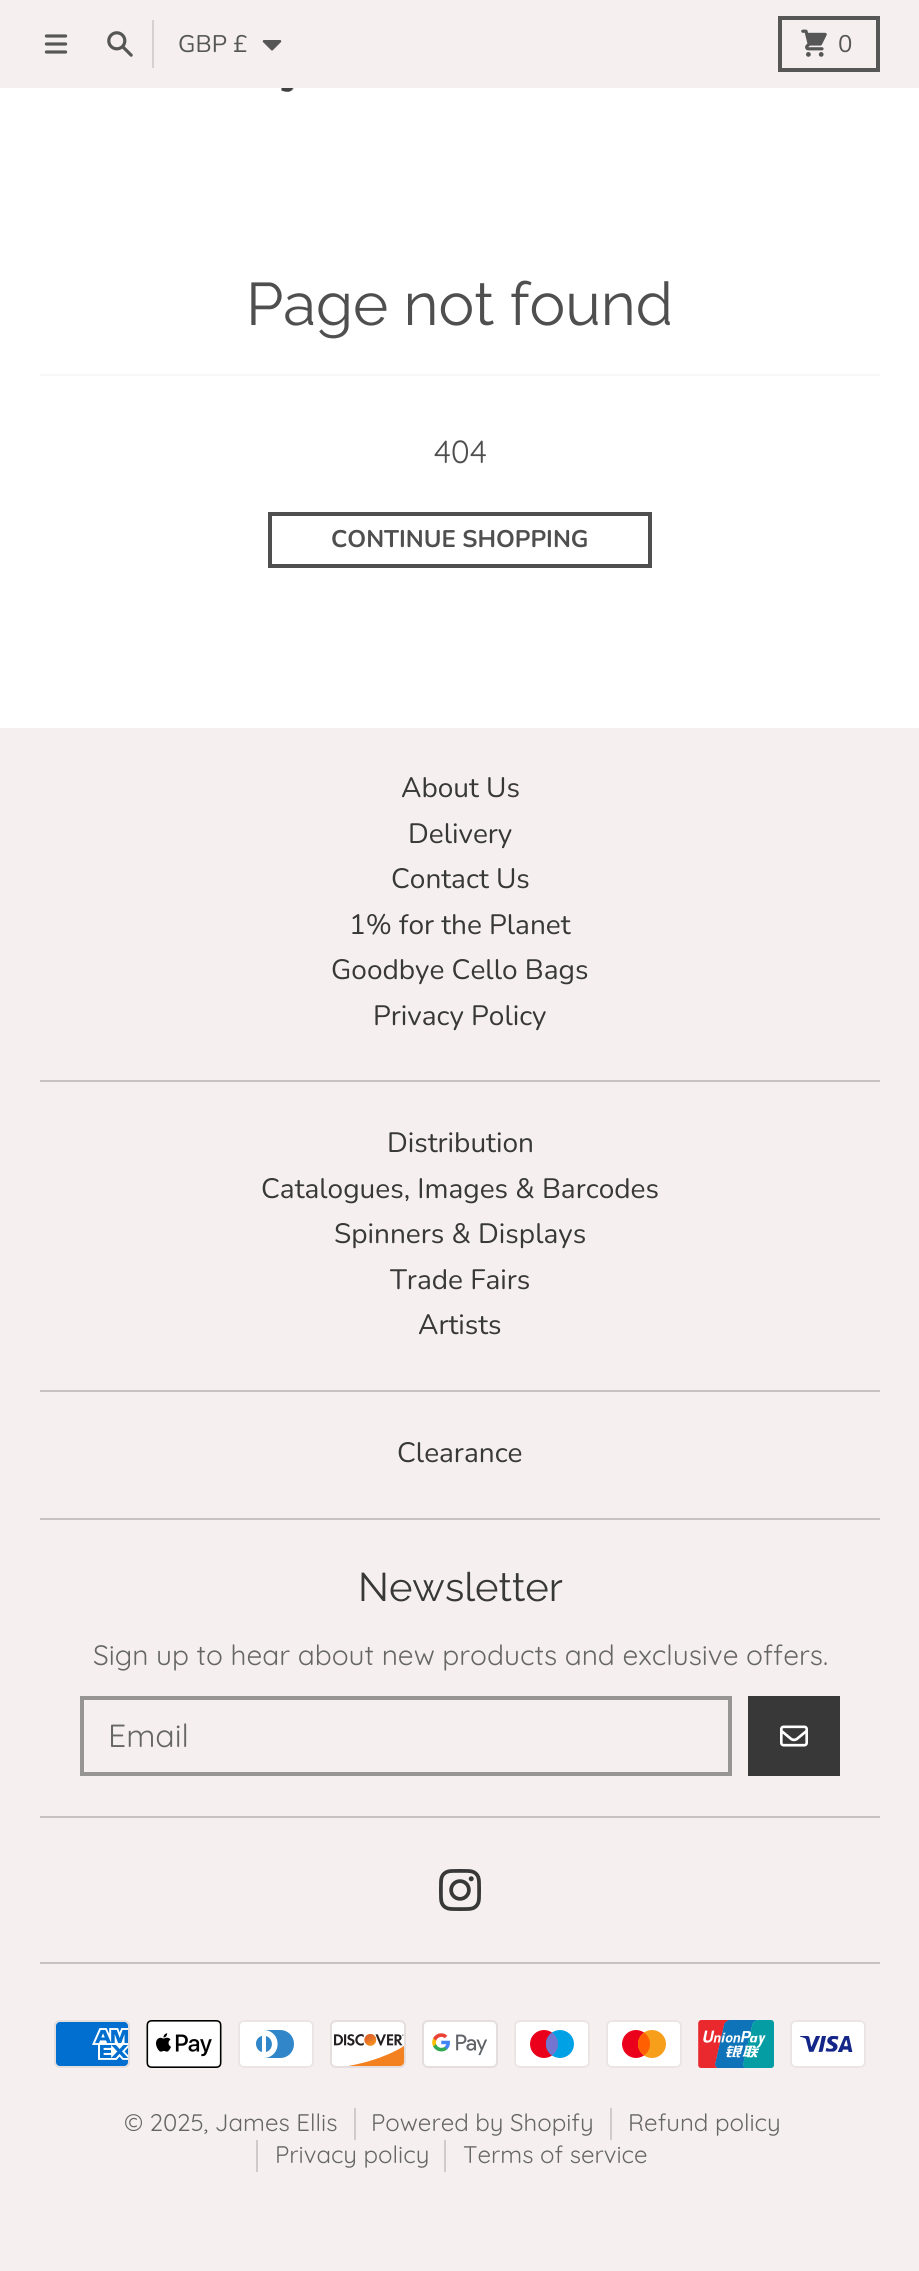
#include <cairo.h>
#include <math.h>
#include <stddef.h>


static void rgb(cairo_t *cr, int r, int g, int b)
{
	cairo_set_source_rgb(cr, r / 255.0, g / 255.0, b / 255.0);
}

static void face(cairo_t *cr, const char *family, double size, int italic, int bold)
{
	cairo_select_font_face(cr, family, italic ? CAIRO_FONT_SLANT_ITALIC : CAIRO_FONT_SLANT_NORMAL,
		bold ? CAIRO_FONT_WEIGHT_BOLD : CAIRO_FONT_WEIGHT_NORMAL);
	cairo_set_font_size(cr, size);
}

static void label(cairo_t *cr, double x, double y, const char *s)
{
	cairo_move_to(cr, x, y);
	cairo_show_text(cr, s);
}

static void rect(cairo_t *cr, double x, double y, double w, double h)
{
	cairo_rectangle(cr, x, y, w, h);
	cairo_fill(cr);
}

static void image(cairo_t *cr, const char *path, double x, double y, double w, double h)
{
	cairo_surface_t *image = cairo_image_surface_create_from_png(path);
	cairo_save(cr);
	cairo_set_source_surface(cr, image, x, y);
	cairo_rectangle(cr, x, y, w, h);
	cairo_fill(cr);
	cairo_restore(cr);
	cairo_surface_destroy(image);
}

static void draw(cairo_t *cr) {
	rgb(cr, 245, 240, 239);
	cairo_paint(cr);
	image(cr, "image0.png", 44, 34, 24, 20);
	image(cr, "image1.png", 107, 31, 26, 26);
	rgb(cr, 213, 209, 208);
	rect(cr, 152, 20, 2, 48);
	face(cr, "Nunito", 24, 0, 0);
	rgb(cr, 86, 86, 86);
	label(cr, 178, 52, "GBP £");
	image(cr, "image2.png", 262, 40, 20, 11);
	cairo_rectangle(cr, 780, 18, 98, 52);
	cairo_set_line_width(cr, 4);
	cairo_stroke(cr);
	image(cr, "image3.png", 801, 29, 26, 28);
	label(cr, 838, 52, "0");
	rgb(cr, 255, 255, 255);
	rect(cr, 0, 88, 919, 640);
	image(cr, "image4.png", 281, 88, 13, 4);
	rgb(cr, 248, 248, 248);
	rect(cr, 40, 374, 840, 2);
	face(cr, "Raleway Thin", 60, 0, 0);
	rgb(cr, 79, 79, 79);
	label(cr, 246, 325, "Page not found");
	face(cr, "Quicksand", 32, 0, 0);
	label(cr, 434, 463, "404");
	cairo_rectangle(cr, 270, 514, 380, 52);
	cairo_stroke(cr);
	face(cr, "Nunito", 24, 0, 1);
	label(cr, 331, 547, "CONTINUE SHOPPING");
	face(cr, "Nunito", 28, 0, 0);
	rgb(cr, 56, 56, 56);
	label(cr, 401, 797, "About Us");
	label(cr, 408, 843, "Delivery");
	label(cr, 391, 888, "Contact Us");
	label(cr, 349, 934, "1% for the Planet");
	label(cr, 331, 979, "Goodbye Cello Bags");
	label(cr, 373, 1025, "Privacy Policy");
	rgb(cr, 198, 194, 193);
	rect(cr, 40, 1080, 840, 2);
	rgb(cr, 56, 56, 56);
	label(cr, 387, 1152, "Distribution");
	label(cr, 261, 1198, "Catalogues, Images & Barcodes");
	label(cr, 334, 1243, "Spinners & Displays");
	label(cr, 390, 1289, "Trade Fairs");
	label(cr, 418, 1334, "Artists");
	rgb(cr, 198, 194, 193);
	rect(cr, 40, 1390, 840, 2);
	rgb(cr, 56, 56, 56);
	label(cr, 397, 1462, "Clearance");
	rgb(cr, 198, 194, 193);
	rect(cr, 40, 1518, 840, 2);
	face(cr, "Raleway Thin", 40, 0, 0);
	rgb(cr, 56, 56, 56);
	label(cr, 358, 1601, "Newsletter");
	face(cr, "Quicksand", 28, 0, 0);
	rgb(cr, 103, 102, 102);
	label(cr, 93, 1665, "Sign up to hear about new products and exclusive offers.");
	cairo_rectangle(cr, 82, 1698, 648, 76);
	rgb(cr, 151, 148, 148);
	cairo_stroke(cr);
	face(cr, "Quicksand", 32, 0, 0);
	rgb(cr, 103, 102, 102);
	label(cr, 108, 1747, "Email");
	rgb(cr, 56, 56, 56);
	rect(cr, 748, 1696, 92, 80);
	image(cr, "image5.png", 780, 1725, 28, 22);
	rgb(cr, 198, 194, 193);
	rect(cr, 40, 1816, 840, 2);
	image(cr, "image6.png", 439, 1869, 42, 42);
	rect(cr, 40, 1962, 840, 2);
	image(cr, "image7.png", 54, 2020, 76, 48);
	image(cr, "image8.png", 146, 2020, 76, 48);
	image(cr, "image9.png", 238, 2020, 76, 48);
	image(cr, "image10.png", 330, 2020, 76, 48);
	image(cr, "image11.png", 422, 2020, 76, 48);
	image(cr, "image12.png", 514, 2020, 76, 48);
	image(cr, "image13.png", 606, 2020, 76, 48);
	image(cr, "image14.png", 698, 2020, 76, 48);
	image(cr, "image15.png", 790, 2020, 76, 48);
	face(cr, "Quicksand", 24, 0, 0);
	rgb(cr, 103, 102, 102);
	label(cr, 124, 2131, "© 2025, James Ellis");
	rgb(cr, 207, 203, 202);
	rect(cr, 354, 2108, 2, 32);
	rgb(cr, 103, 102, 102);
	label(cr, 371, 2131, "Powered by Shopify");
	rgb(cr, 207, 203, 202);
	rect(cr, 610, 2108, 2, 32);
	rgb(cr, 103, 102, 102);
	label(cr, 628, 2131, "Refund policy");
	rgb(cr, 207, 203, 202);
	rect(cr, 256, 2140, 2, 32);
	rgb(cr, 103, 102, 102);
	label(cr, 275, 2163, "Privacy policy");
	rgb(cr, 207, 203, 202);
	rect(cr, 444, 2140, 2, 32);
	rgb(cr, 103, 102, 102);
	label(cr, 463, 2163, "Terms of service");
}

int main(void) {
	cairo_surface_t *surface = cairo_image_surface_create(CAIRO_FORMAT_RGB24, 919, 2271);
	cairo_t *cr = cairo_create(surface);
	cairo_font_options_t *options = cairo_font_options_create();
	cairo_font_options_set_hint_metrics(options, CAIRO_HINT_METRICS_OFF);
	cairo_font_options_set_hint_style(options, CAIRO_HINT_STYLE_NONE);
	cairo_set_font_options(cr, options);
	cairo_set_miter_limit(cr, 4);
	draw(cr);
	cairo_surface_write_to_png(surface, "render.png");
	cairo_font_options_destroy(options);
	cairo_destroy(cr);
	cairo_surface_destroy(surface);
	return 0;
}
